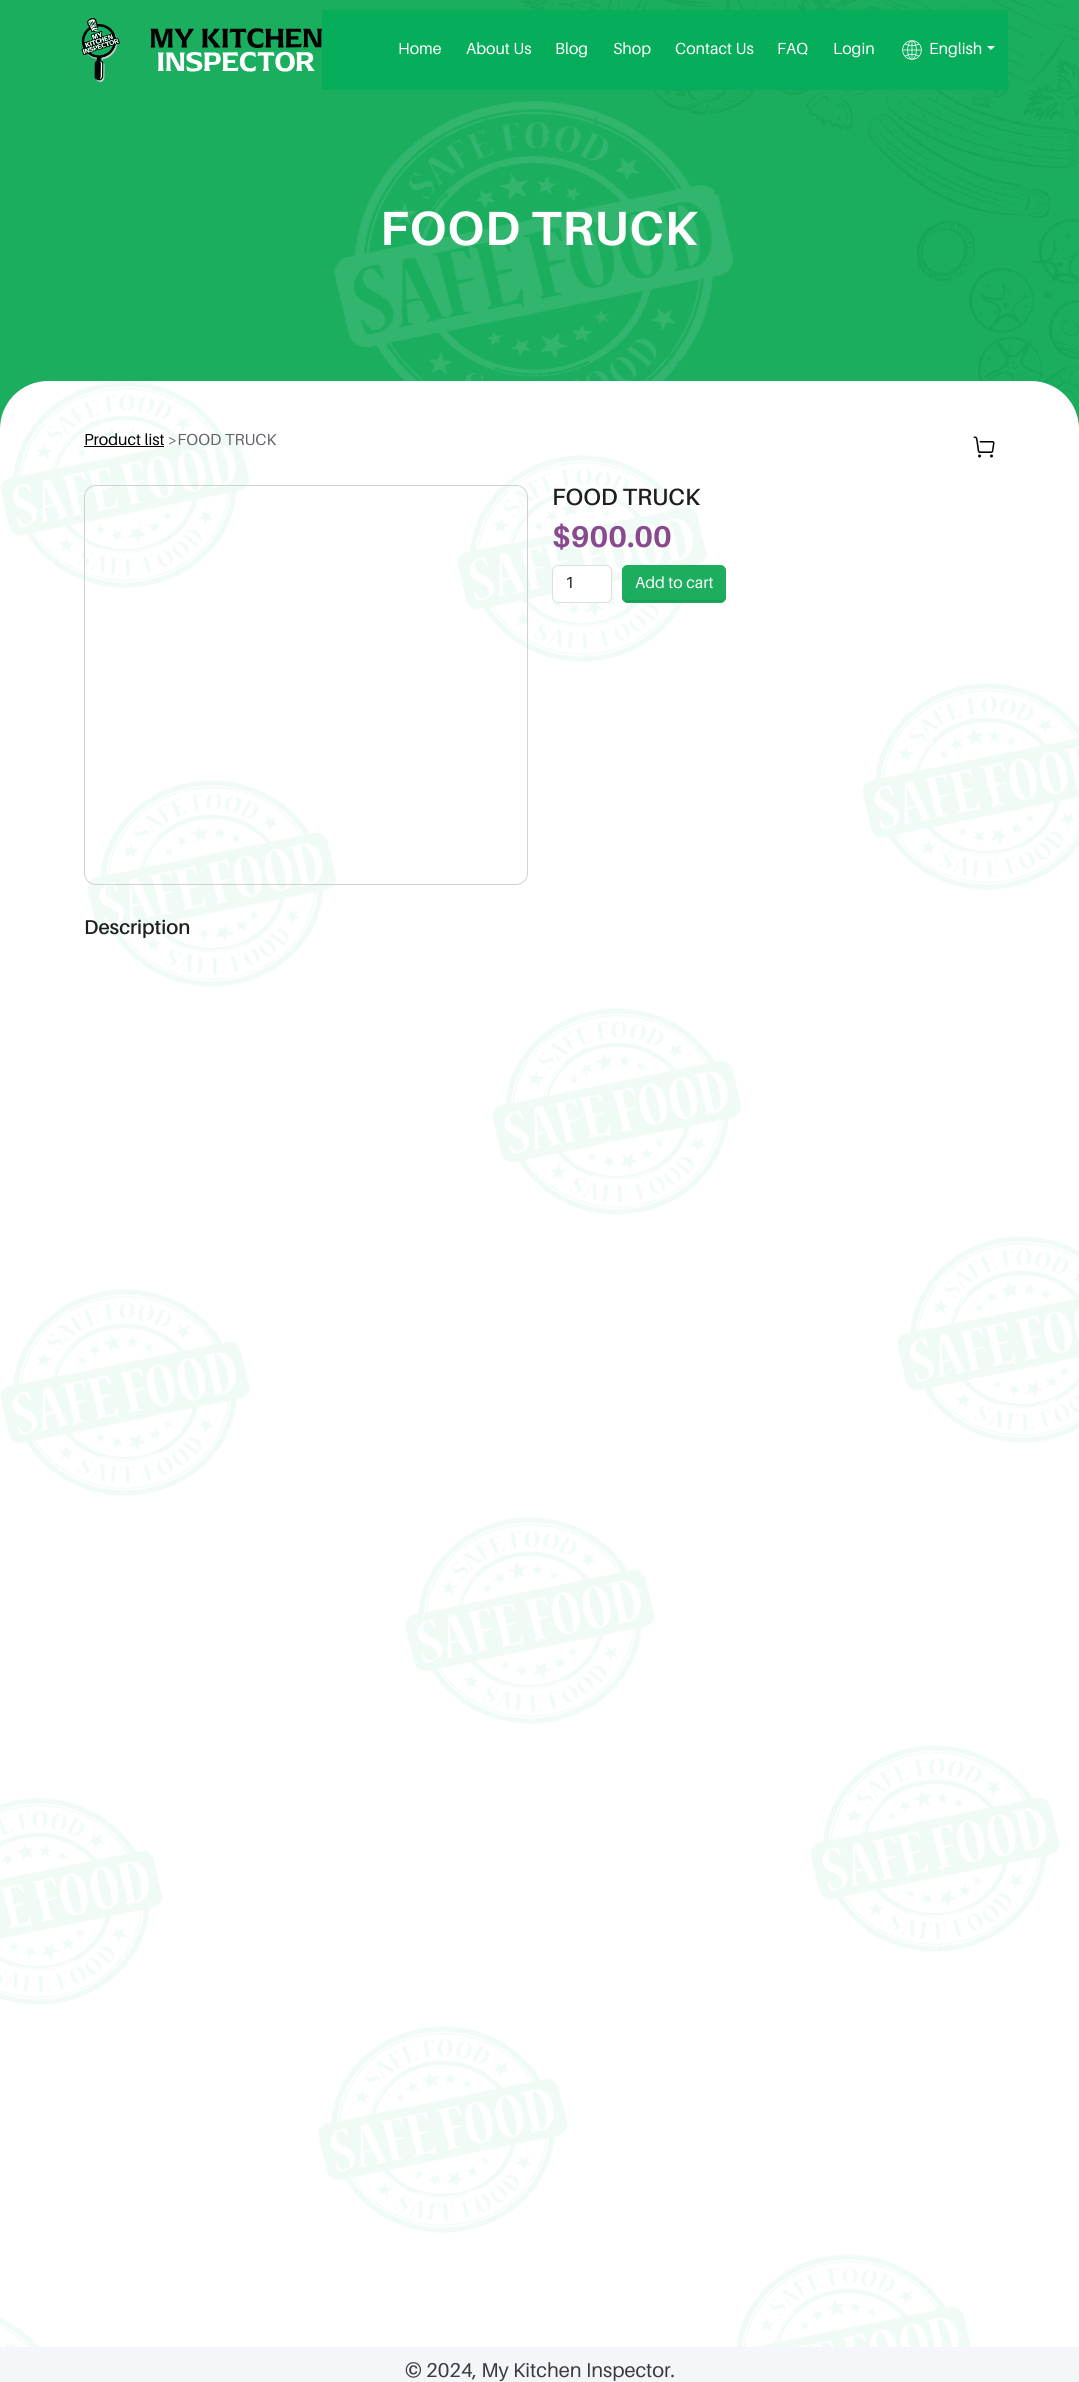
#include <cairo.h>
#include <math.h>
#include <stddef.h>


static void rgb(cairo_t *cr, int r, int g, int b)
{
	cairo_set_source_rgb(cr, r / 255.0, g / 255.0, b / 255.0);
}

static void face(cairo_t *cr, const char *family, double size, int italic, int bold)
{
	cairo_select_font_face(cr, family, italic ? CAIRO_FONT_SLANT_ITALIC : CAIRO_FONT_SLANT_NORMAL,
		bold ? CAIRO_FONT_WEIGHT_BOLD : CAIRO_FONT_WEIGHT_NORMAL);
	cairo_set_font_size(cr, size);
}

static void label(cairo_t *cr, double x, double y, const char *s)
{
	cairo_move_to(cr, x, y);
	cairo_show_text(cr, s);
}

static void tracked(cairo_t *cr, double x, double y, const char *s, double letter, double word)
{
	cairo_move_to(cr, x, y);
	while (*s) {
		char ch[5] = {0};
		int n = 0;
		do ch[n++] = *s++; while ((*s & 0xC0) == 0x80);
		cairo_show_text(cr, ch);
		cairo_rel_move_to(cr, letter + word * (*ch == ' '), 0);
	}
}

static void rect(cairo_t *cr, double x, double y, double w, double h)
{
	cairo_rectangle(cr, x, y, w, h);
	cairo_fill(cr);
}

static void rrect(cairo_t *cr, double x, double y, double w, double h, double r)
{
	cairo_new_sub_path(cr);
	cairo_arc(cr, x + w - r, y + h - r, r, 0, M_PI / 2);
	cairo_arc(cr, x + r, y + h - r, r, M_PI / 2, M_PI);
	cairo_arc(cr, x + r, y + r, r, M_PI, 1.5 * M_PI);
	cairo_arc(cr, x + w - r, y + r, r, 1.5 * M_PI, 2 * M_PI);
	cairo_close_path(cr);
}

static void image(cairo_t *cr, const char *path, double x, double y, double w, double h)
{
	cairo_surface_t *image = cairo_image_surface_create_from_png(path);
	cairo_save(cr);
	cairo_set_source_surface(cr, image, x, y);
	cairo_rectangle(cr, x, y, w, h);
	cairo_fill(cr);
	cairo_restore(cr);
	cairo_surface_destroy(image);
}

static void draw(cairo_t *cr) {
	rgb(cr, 255, 255, 255);
	cairo_paint(cr);
	image(cr, "image0.png", 0, 0, 1079, 429);
	image(cr, "image1.png", 81, 18, 241, 64);
	rgb(cr, 6, 174, 91);
	rect(cr, 322, 10, 686, 80);
	face(cr, "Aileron", 16, 0, 0);
	rgb(cr, 255, 255, 255);
	label(cr, 398, 54, "Home");
	label(cr, 466, 54, "About Us");
	label(cr, 555, 54, "Blog");
	label(cr, 613, 54, "Shop");
	label(cr, 675, 54, "Contact Us");
	label(cr, 777, 54, "FAQ");
	label(cr, 833, 54, "Login");
	image(cr, "image2.png", 902, 40, 20, 20);
	label(cr, 929, 54, "English");
	cairo_new_path(cr);
	cairo_move_to(cr, 987, 46);
	cairo_line_to(cr, 995, 46);
	cairo_line_to(cr, 991, 50);
	cairo_close_path(cr);
	cairo_fill(cr);
	face(cr, "Aileron", 48, 0, 1);
	tracked(cr, 380, 245, "FOOD TRUCK", 1, 0);
	cairo_new_path(cr);
	cairo_move_to(cr, 48, 381);
	cairo_line_to(cr, 1031, 381);
	cairo_curve_to(cr, 1057.5, 381, 1079, 402.5, 1079, 429);
	cairo_line_to(cr, 1079, 2347);
	cairo_line_to(cr, 0, 2347);
	cairo_line_to(cr, 0, 429);
	cairo_curve_to(cr, 0, 402.5, 21.5, 381, 48, 381);
	cairo_close_path(cr);
	cairo_fill(cr);
	image(cr, "image3.png", 0, 381, 1079, 1966);
	face(cr, "Aileron", 16, 0, 0);
	rgb(cr, 0, 0, 0);
	label(cr, 84, 445, "Product list");
	rect(cr, 84, 446, 80, 1);
	rgb(cr, 100, 98, 106);
	label(cr, 168, 445, ">FOOD TRUCK");
	image(cr, "image4.png", 973, 436, 22, 22);
	rrect(cr, 84.5, 485.5, 443, 399, 11.5);
	rgb(cr, 209, 208, 214);
	cairo_set_line_width(cr, 1);
	cairo_stroke(cr);
	face(cr, "Aileron SemiBold", 23.5, 0, 0);
	rgb(cr, 30, 30, 30);
	label(cr, 552, 505, "FOOD TRUCK");
	face(cr, "Aileron", 30, 0, 1);
	rgb(cr, 136, 73, 143);
	label(cr, 552, 547, "$900.00");
	rgb(cr, 255, 255, 255);
	rrect(cr, 552.5, 565.5, 59, 37, 5.5);
	cairo_fill_preserve(cr);
	rgb(cr, 221, 221, 221);
	cairo_stroke(cr);
	face(cr, "Aileron", 16, 0, 0);
	rgb(cr, 30, 30, 30);
	label(cr, 565, 588, "1");
	rgb(cr, 28, 173, 94);
	rrect(cr, 622, 565, 104, 38, 6);
	cairo_fill(cr);
	rgb(cr, 26, 159, 86);
	cairo_new_path(cr);
	cairo_move_to(cr, 623, 595);
	cairo_curve_to(cr, 623, 606, 635, 602, 643, 602);
	cairo_line_to(cr, 705, 602);
	cairo_curve_to(cr, 713, 602, 725, 606, 725, 595);
	cairo_curve_to(cr, 725, 598, 723, 600, 720, 600);
	cairo_line_to(cr, 628, 600);
	cairo_curve_to(cr, 625, 600, 623, 598, 623, 595);
	cairo_close_path(cr);
	cairo_fill(cr);
	rrect(cr, 622.5, 565.5, 103, 37, 5.5);
	rgb(cr, 28, 173, 94);
	cairo_stroke(cr);
	rgb(cr, 255, 255, 255);
	label(cr, 635, 588, "Add to cart");
	face(cr, "Aileron SemiBold", 20, 0, 0);
	rgb(cr, 30, 30, 30);
	label(cr, 84, 934, "Description");
	rgb(cr, 245, 246, 249);
	rect(cr, 0, 2347, 1079, 35);
	face(cr, "Aileron", 20, 0, 0);
	rgb(cr, 59, 58, 64);
	label(cr, 405, 2377, "© 2024, My Kitchen Inspector.");
}

int main(void) {
	cairo_surface_t *surface = cairo_image_surface_create(CAIRO_FORMAT_RGB24, 1079, 2382);
	cairo_t *cr = cairo_create(surface);
	cairo_font_options_t *options = cairo_font_options_create();
	cairo_font_options_set_hint_metrics(options, CAIRO_HINT_METRICS_OFF);
	cairo_font_options_set_hint_style(options, CAIRO_HINT_STYLE_NONE);
	cairo_set_font_options(cr, options);
	cairo_set_miter_limit(cr, 4);
	draw(cr);
	cairo_surface_write_to_png(surface, "render.png");
	cairo_font_options_destroy(options);
	cairo_destroy(cr);
	cairo_surface_destroy(surface);
	return 0;
}
